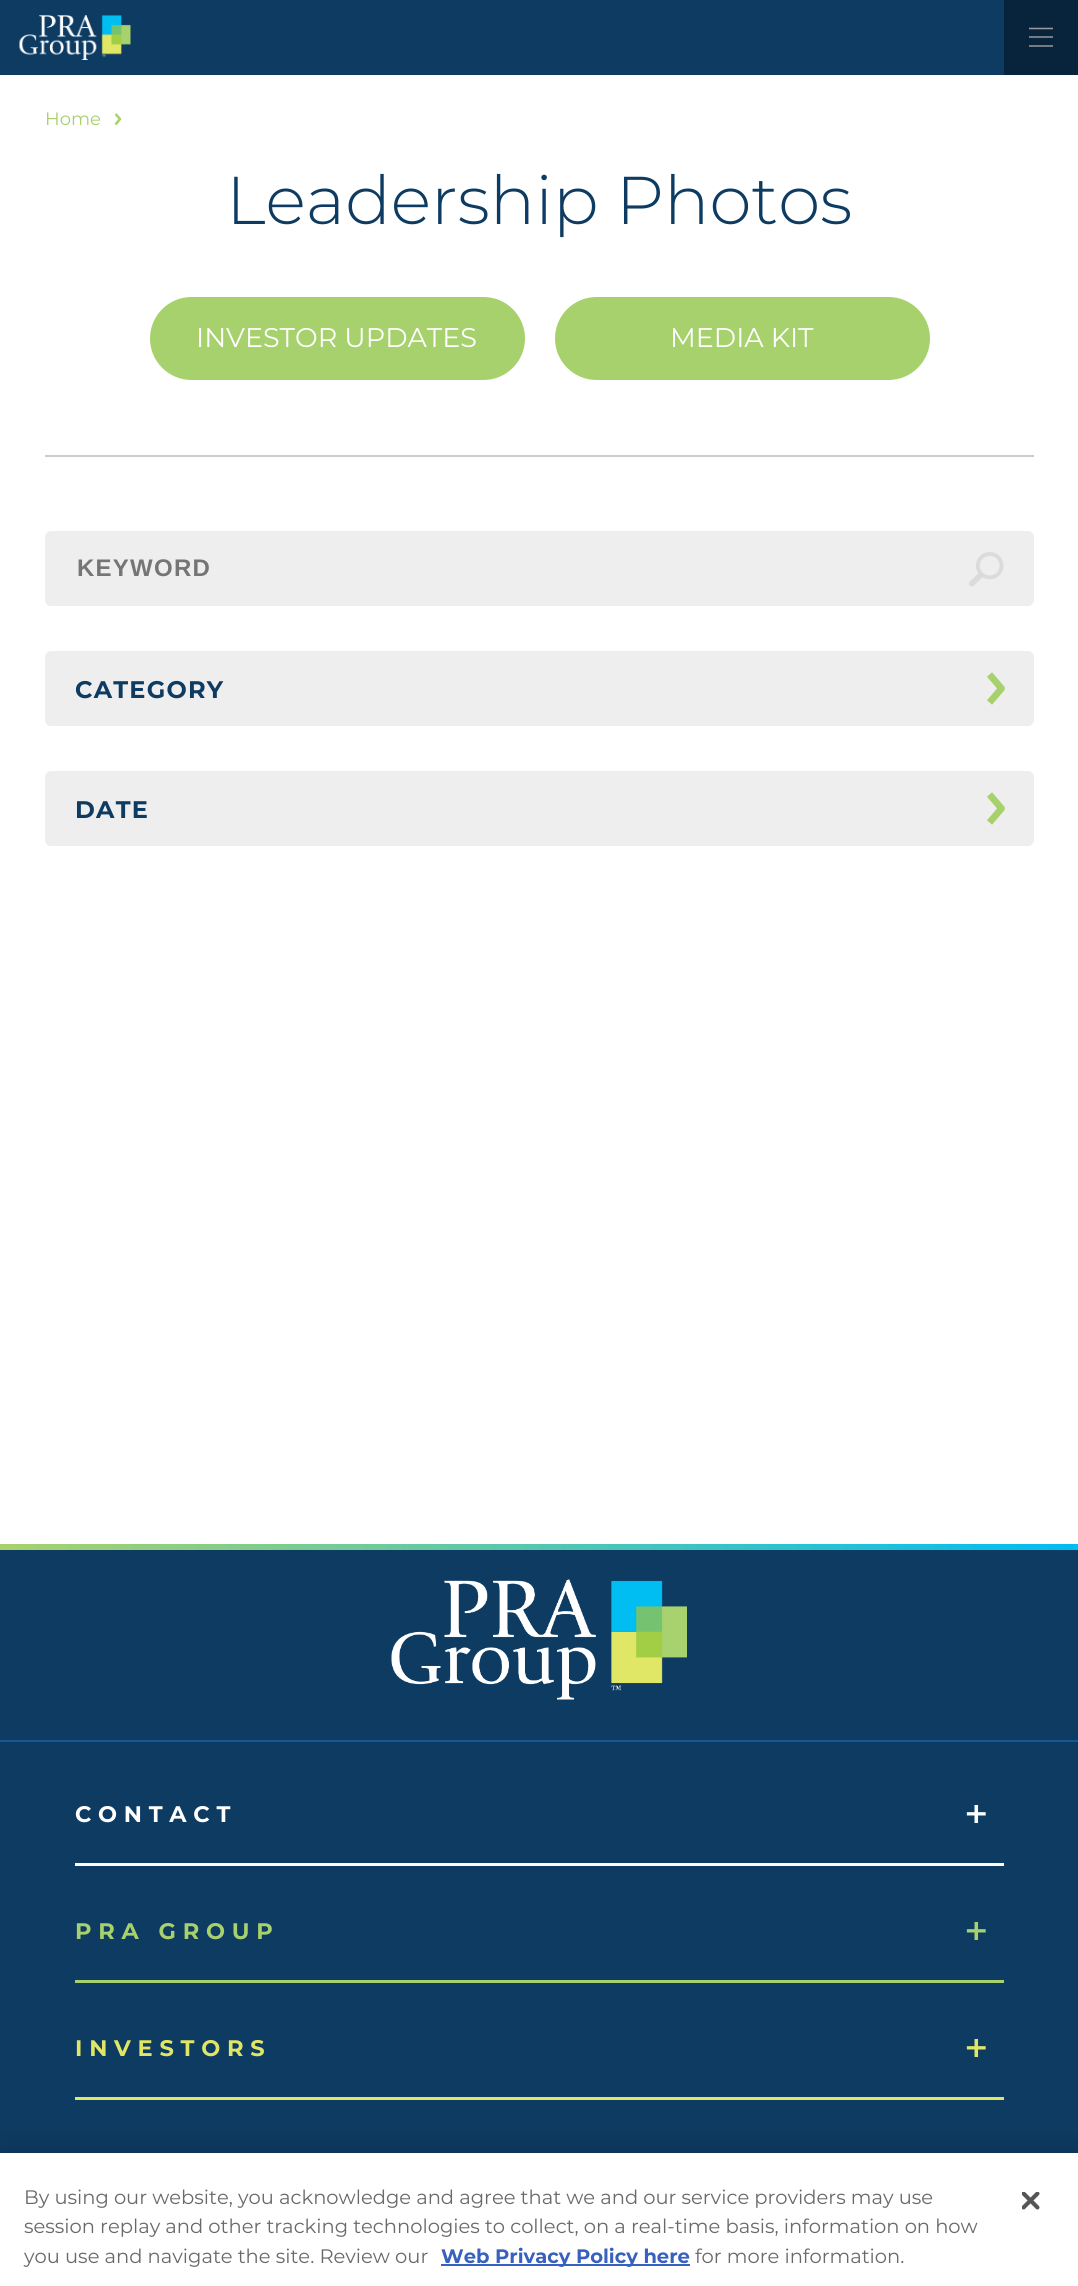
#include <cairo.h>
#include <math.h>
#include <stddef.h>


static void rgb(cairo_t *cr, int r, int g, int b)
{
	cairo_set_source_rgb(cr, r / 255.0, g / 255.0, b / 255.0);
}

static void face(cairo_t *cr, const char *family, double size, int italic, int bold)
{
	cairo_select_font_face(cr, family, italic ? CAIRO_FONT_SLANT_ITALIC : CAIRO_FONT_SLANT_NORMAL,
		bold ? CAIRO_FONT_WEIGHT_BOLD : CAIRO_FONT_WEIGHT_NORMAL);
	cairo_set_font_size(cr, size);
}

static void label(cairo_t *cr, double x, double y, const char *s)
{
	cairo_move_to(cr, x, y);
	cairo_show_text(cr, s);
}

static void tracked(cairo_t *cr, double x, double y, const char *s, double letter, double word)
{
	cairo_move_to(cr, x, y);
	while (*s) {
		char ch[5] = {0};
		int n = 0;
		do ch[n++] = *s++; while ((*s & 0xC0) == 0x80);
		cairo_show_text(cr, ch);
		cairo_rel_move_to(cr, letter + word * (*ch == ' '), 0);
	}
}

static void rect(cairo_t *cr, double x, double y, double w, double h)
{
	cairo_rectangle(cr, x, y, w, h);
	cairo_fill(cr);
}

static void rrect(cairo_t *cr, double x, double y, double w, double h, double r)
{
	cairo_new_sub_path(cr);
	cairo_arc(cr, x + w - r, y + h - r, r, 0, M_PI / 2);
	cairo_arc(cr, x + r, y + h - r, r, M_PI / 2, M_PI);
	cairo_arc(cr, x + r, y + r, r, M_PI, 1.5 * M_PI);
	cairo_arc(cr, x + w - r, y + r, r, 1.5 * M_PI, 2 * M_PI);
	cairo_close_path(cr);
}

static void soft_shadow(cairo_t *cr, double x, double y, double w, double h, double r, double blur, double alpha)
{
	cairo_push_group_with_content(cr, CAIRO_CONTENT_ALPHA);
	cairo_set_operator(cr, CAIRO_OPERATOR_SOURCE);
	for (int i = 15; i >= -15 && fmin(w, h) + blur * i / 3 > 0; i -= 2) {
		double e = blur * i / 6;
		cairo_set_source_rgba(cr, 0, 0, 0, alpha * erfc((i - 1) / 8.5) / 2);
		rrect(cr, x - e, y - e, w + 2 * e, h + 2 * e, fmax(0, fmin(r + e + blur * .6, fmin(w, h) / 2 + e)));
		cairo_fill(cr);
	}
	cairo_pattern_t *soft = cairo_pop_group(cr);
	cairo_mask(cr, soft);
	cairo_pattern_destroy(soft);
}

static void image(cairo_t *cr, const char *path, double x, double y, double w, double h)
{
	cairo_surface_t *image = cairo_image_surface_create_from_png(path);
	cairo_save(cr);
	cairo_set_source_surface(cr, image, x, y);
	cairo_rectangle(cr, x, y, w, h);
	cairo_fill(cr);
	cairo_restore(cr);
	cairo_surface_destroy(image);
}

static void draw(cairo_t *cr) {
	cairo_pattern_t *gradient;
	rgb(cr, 255, 255, 255);
	cairo_paint(cr);
	rgb(cr, 13, 59, 98);
	rect(cr, 0, 0, 1004, 75);
	image(cr, "image0.png", 19, 15, 112, 45);
	rgb(cr, 8, 36, 61);
	rect(cr, 1004, 0, 74, 75);
	rgb(cr, 118, 123, 131);
	rect(cr, 1029, 45, 24, 2);
	rect(cr, 1029, 36, 24, 2);
	cairo_new_path(cr);
	cairo_move_to(cr, 1029, 28.5);
	cairo_line_to(cr, 1053, 28.5);
	rgb(cr, 154, 152, 154);
	cairo_set_line_width(cr, 1.5);
	cairo_set_line_join(cr, CAIRO_LINE_JOIN_ROUND);
	cairo_stroke(cr);
	face(cr, "Montserrat", 18, 0, 0);
	rgb(cr, 167, 209, 108);
	label(cr, 45, 125, "Home");
	cairo_new_path(cr);
	cairo_move_to(cr, 115.5, 114);
	cairo_line_to(cr, 120, 119);
	cairo_line_to(cr, 115.5, 124.5);
	cairo_set_line_width(cr, 2.5);
	cairo_stroke(cr);
	face(cr, "Montserrat Light", 67.5, 0, 0);
	rgb(cr, 13, 59, 98);
	label(cr, 226, 224, "Leadership Photos");
	rgb(cr, 204, 204, 204);
	rect(cr, 45, 455, 989, 2);
	rgb(cr, 167, 209, 108);
	rrect(cr, 150, 297, 375, 83, 41.5);
	cairo_fill(cr);
	face(cr, "Montserrat", 27, 0, 0);
	rgb(cr, 255, 255, 255);
	label(cr, 196, 347, "INVESTOR UPDATES");
	rgb(cr, 167, 209, 108);
	rrect(cr, 555, 297, 375, 83, 41.5);
	cairo_fill(cr);
	rgb(cr, 255, 255, 255);
	label(cr, 670, 347, "MEDIA KIT");
	rgb(cr, 238, 238, 238);
	rrect(cr, 45, 531, 989, 75, 6);
	cairo_fill(cr);
	image(cr, "image1.png", 969, 552, 35, 35);
	face(cr, "Liberation Sans", 24, 0, 1);
	rgb(cr, 117, 117, 117);
	tracked(cr, 77, 576, "KEYWORD", 1.25, 0);
	rgb(cr, 238, 238, 238);
	rrect(cr, 45, 651, 989, 75, 6);
	cairo_fill(cr);
	face(cr, "Montserrat", 24, 0, 1);
	rgb(cr, 13, 59, 98);
	tracked(cr, 75, 698, "CATEGORY", 1.25, 0);
	cairo_new_path(cr);
	cairo_move_to(cr, 989.5, 674.5);
	cairo_line_to(cr, 1001.5, 688.5);
	cairo_line_to(cr, 989.5, 702.5);
	rgb(cr, 167, 209, 108);
	cairo_set_line_width(cr, 6.8);
	cairo_stroke(cr);
	rgb(cr, 238, 238, 238);
	rrect(cr, 45, 771, 989, 75, 6);
	cairo_fill(cr);
	rgb(cr, 13, 59, 98);
	tracked(cr, 75, 818, "DATE", 1.25, 0);
	cairo_new_path(cr);
	cairo_move_to(cr, 989.5, 794.5);
	cairo_line_to(cr, 1001.5, 808.5);
	cairo_line_to(cr, 989.5, 822.5);
	rgb(cr, 167, 209, 108);
	cairo_stroke(cr);
	rgb(cr, 13, 59, 98);
	rect(cr, 0, 1550, 1078, 190);
	rgb(cr, 21, 88, 146);
	rect(cr, 0, 1740, 1078, 2);
	gradient = cairo_pattern_create_linear(0, 1547, 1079, 1547);
	cairo_pattern_add_color_stop_rgba(gradient, 0, 0.659, 0.82, 0.424, 1);
	cairo_pattern_add_color_stop_rgba(gradient, 1, 0, 0.737, 0.949, 1);
	cairo_set_source(cr, gradient);
	cairo_pattern_destroy(gradient);
	rect(cr, 0, 1544, 1078, 6);
	image(cr, "image2.png", 391, 1579, 296, 121);
	rgb(cr, 13, 59, 98);
	rect(cr, 0, 1742, 1078, 411);
	rgb(cr, 255, 255, 255);
	rect(cr, 75, 1863, 929, 3);
	face(cr, "Montserrat", 22.5, 0, 1);
	tracked(cr, 75, 1822, "CONTACT", 6.75, 0);
	image(cr, "image3.png", 966, 1805, 20, 18);
	rgb(cr, 167, 209, 108);
	rect(cr, 75, 1980, 929, 3);
	tracked(cr, 75, 1939, "PRA GROUP", 6.75, 0);
	image(cr, "image4.png", 966, 1922, 20, 18);
	rgb(cr, 223, 229, 101);
	rect(cr, 75, 2097, 929, 3);
	tracked(cr, 75, 2056, "INVESTORS", 6.75, 0);
	image(cr, "image5.png", 966, 2039, 20, 18);
	rgb(cr, 0, 0, 0);
	soft_shadow(cr, 0, 2153, 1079, 133, 0, 13.5, 0.2);
	rgb(cr, 255, 255, 255);
	rect(cr, 0, 2153, 1078, 133);
	face(cr, "Montserrat", 19.5, 0, 0);
	rgb(cr, 105, 105, 105);
	label(cr, 24, 2204, "By using our website, you acknowledge and agree that we and our service providers may use");
	label(cr, 24, 2233, "session replay and other tracking technologies to collect, on a real-time basis, information on how");
	label(cr, 24, 2263, "you use and navigate the site. Review our");
	rgb(cr, 56, 96, 190);
	rect(cr, 441, 2264, 249, 2);
	face(cr, "Montserrat", 19.5, 0, 1);
	label(cr, 441, 2263, "Web Privacy Policy here");
	face(cr, "Montserrat", 19.5, 0, 0);
	rgb(cr, 105, 105, 105);
	label(cr, 695, 2263, "for more information.");
	image(cr, "image6.png", 1022, 2192, 18, 18);
}

int main(void) {
	cairo_surface_t *surface = cairo_image_surface_create(CAIRO_FORMAT_RGB24, 1078, 2286);
	cairo_t *cr = cairo_create(surface);
	cairo_font_options_t *options = cairo_font_options_create();
	cairo_font_options_set_hint_metrics(options, CAIRO_HINT_METRICS_OFF);
	cairo_font_options_set_hint_style(options, CAIRO_HINT_STYLE_NONE);
	cairo_set_font_options(cr, options);
	cairo_set_miter_limit(cr, 4);
	draw(cr);
	cairo_surface_write_to_png(surface, "render.png");
	cairo_font_options_destroy(options);
	cairo_destroy(cr);
	cairo_surface_destroy(surface);
	return 0;
}
